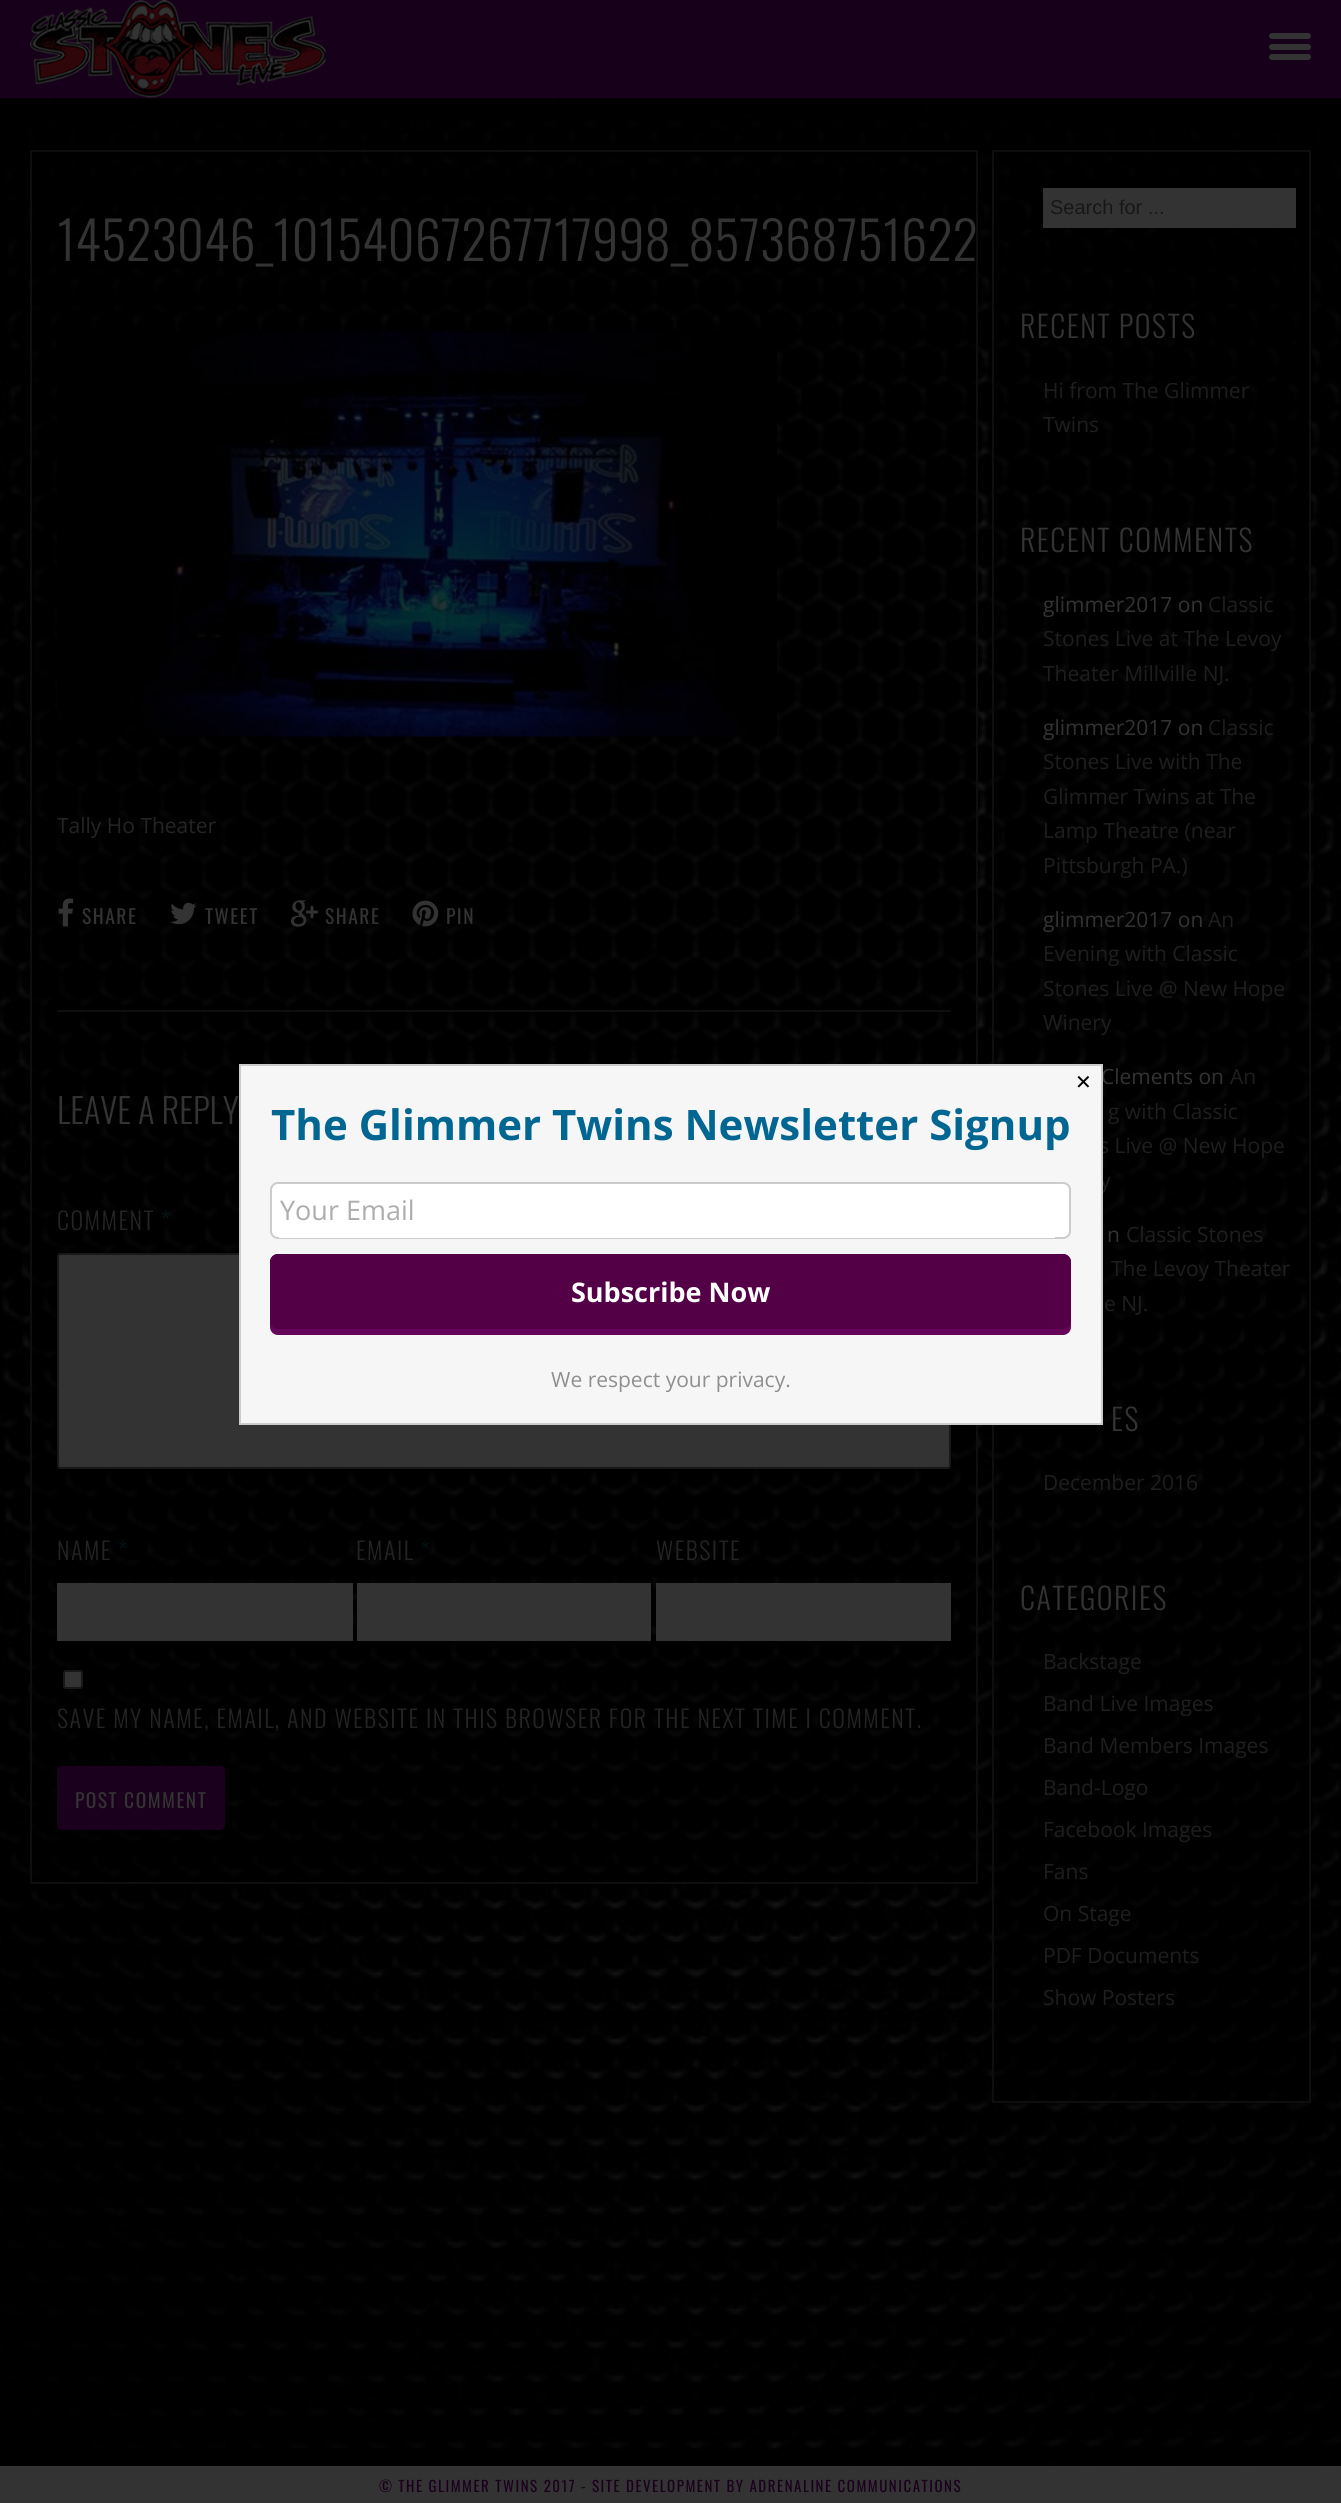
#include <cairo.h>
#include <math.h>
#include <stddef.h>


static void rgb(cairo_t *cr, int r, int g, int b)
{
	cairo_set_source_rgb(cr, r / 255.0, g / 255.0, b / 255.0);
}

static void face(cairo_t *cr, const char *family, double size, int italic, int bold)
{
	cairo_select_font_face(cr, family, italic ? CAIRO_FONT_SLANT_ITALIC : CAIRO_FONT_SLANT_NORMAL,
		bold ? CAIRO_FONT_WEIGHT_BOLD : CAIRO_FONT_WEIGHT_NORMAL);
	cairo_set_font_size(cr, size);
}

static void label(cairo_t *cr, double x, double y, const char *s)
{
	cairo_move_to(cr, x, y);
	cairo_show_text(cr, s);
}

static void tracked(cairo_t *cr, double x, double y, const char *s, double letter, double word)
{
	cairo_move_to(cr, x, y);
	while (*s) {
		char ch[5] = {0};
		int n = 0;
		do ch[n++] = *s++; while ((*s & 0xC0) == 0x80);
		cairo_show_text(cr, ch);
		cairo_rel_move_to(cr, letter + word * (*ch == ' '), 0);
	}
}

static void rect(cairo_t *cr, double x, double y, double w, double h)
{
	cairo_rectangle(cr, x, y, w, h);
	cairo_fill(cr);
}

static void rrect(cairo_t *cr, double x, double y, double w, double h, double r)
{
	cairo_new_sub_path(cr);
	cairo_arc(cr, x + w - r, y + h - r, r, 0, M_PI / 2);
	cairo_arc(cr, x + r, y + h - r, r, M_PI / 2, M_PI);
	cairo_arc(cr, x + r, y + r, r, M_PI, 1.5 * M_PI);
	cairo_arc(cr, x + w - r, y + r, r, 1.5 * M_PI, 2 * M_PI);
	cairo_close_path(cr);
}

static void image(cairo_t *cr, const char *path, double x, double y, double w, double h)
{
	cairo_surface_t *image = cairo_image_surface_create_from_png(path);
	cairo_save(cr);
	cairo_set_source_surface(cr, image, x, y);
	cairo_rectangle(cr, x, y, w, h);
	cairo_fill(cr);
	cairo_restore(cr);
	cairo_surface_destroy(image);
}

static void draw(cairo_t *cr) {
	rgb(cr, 255, 255, 255);
	cairo_paint(cr);
	image(cr, "image0.png", 0, 0, 1341, 2466);
	cairo_set_source_rgba(cr, 0.102, 0, 0.114, 0.9);
	rect(cr, 0, 0, 1341, 98);
	rgb(cr, 51, 51, 51);
	rrect(cr, 1269, 33, 42, 6, 3);
	cairo_fill(cr);
	rrect(cr, 1269, 44, 42, 6, 3);
	cairo_fill(cr);
	rrect(cr, 1269, 54, 42, 6, 3);
	cairo_fill(cr);
	image(cr, "image1.png", 30, 0, 296, 98);
	cairo_set_source_rgba(cr, 0, 0, 0, 0.5);
	rect(cr, 32, 171, 944, 1705);
	cairo_rectangle(cr, 31, 151, 946, 1732);
	rgb(cr, 13, 14, 13);
	cairo_stroke(cr);
	face(cr, "Oswald Light", 52.5, 0, 0);
	rgb(cr, 51, 51, 51);
	label(cr, 57, 261, "14523046_10154067267717998_857368751622");
	image(cr, "image2.png", 57, 331, 720, 406);
	face(cr, "Open Sans", 21, 0, 0);
	rgb(cr, 36, 36, 36);
	label(cr, 57, 833, "Tally Ho Theater");
	image(cr, "image3.png", 58, 898, 16, 29);
	face(cr, "Oswald", 19.5, 0, 0);
	rgb(cr, 51, 51, 51);
	tracked(cr, 82, 924, "SHARE", 1.5, 0);
	image(cr, "image4.png", 170, 902, 27, 23);
	tracked(cr, 205, 924, "TWEET", 1.5, 0);
	image(cr, "image5.png", 291, 900, 27, 27);
	tracked(cr, 325, 924, "SHARE", 1.5, 0);
	image(cr, "image6.png", 412, 900, 27, 27);
	tracked(cr, 446, 924, "PIN", 1.5, 0);
	rgb(cr, 13, 14, 13);
	rect(cr, 57, 1010, 894, 2);
	face(cr, "Oswald Light", 34.5, 0, 0);
	rgb(cr, 51, 51, 51);
	label(cr, 57, 1124, "LEAVE A REPLY");
	face(cr, "Oswald Light", 24, 0, 0);
	rgb(cr, 36, 36, 36);
	tracked(cr, 57, 1230, "COMMENT", 1.5, 0);
	rgb(cr, 0, 21, 26);
	tracked(cr, 161, 1230, "*", 1.5, 0);
	rgb(cr, 51, 51, 51);
	rrect(cr, 58, 1254, 892, 214, 2);
	cairo_fill_preserve(cr);
	rgb(cr, 24, 24, 24);
	cairo_stroke(cr);
	rgb(cr, 36, 36, 36);
	tracked(cr, 57, 1560, "NAME", 1.5, 0);
	rgb(cr, 0, 21, 26);
	tracked(cr, 118, 1560, "*", 1.5, 0);
	rgb(cr, 51, 51, 51);
	rect(cr, 57, 1583, 296, 58);
	rgb(cr, 36, 36, 36);
	tracked(cr, 356, 1560, "EMAIL", 1.5, 0);
	rgb(cr, 0, 21, 26);
	tracked(cr, 421, 1560, "*", 1.5, 0);
	rgb(cr, 51, 51, 51);
	rect(cr, 357, 1583, 294, 58);
	rgb(cr, 36, 36, 36);
	tracked(cr, 656, 1560, "WEBSITE", 1.5, 0);
	rgb(cr, 51, 51, 51);
	rect(cr, 656, 1583, 295, 58);
	rrect(cr, 64, 1671, 18, 17, 2);
	cairo_fill_preserve(cr);
	rgb(cr, 24, 24, 24);
	cairo_stroke(cr);
	rgb(cr, 36, 36, 36);
	tracked(cr, 57, 1728, "SAVE MY NAME, EMAIL, AND WEBSITE IN THIS BROWSER FOR THE NEXT TIME I COMMENT.", 1.5, 0);
	rgb(cr, 26, 0, 29);
	rrect(cr, 57, 1766, 168, 64, 5);
	cairo_fill(cr);
	face(cr, "Oswald", 19.5, 0, 0);
	rgb(cr, 51, 51, 51);
	tracked(cr, 75, 1808, "POST COMMENT", 1.5, 0);
	cairo_set_source_rgba(cr, 0, 0, 0, 0.5);
	rect(cr, 994, 232, 315, 1869);
	cairo_rectangle(cr, 993, 151, 317, 1951);
	rgb(cr, 13, 14, 13);
	cairo_stroke(cr);
	rgb(cr, 51, 51, 51);
	rect(cr, 1043, 188, 253, 40);
	face(cr, "Liberation Sans", 20, 0, 0);
	rgb(cr, 23, 23, 23);
	label(cr, 1050, 214, "Search for ...");
	face(cr, "Oswald Light", 30, 0, 0);
	rgb(cr, 51, 51, 51);
	tracked(cr, 1020, 338, "RECENT POSTS", 1.5, 0);
	face(cr, "Open Sans", 21, 0, 0);
	rgb(cr, 30, 30, 30);
	label(cr, 1043, 398, "Hi from The Glimmer");
	label(cr, 1043, 432, "Twins");
	face(cr, "Oswald Light", 30, 0, 0);
	rgb(cr, 51, 51, 51);
	tracked(cr, 1020, 552, "RECENT COMMENTS", 1.5, 0);
	face(cr, "Open Sans", 21, 0, 0);
	label(cr, 1043, 612, "glimmer2017 on");
	rgb(cr, 30, 30, 30);
	label(cr, 1208, 612, "Classic");
	label(cr, 1043, 646, "Stones Live at The Levoy");
	label(cr, 1043, 681, "Theater Millville NJ.");
	rgb(cr, 51, 51, 51);
	label(cr, 1043, 735, "glimmer2017 on");
	rgb(cr, 30, 30, 30);
	label(cr, 1208, 735, "Classic");
	label(cr, 1043, 769, "Stones Live with The");
	label(cr, 1043, 804, "Glimmer Twins at The");
	label(cr, 1043, 838, "Lamp Theatre (near");
	label(cr, 1043, 873, "Pittsburgh PA.)");
	rgb(cr, 51, 51, 51);
	label(cr, 1043, 927, "glimmer2017 on");
	rgb(cr, 30, 30, 30);
	label(cr, 1208, 927, "An");
	label(cr, 1043, 961, "Evening with Classic");
	label(cr, 1043, 996, "Stones Live @ New Hope");
	label(cr, 1043, 1030, "Winery");
	rgb(cr, 51, 51, 51);
	label(cr, 1101, 1084, "Clements on");
	rgb(cr, 30, 30, 30);
	label(cr, 1230, 1084, "An");
	label(cr, 1108, 1119, "g with Classic");
	label(cr, 1099, 1153, "s Live @ New Hope");
	label(cr, 1100, 1188, "y");
	rgb(cr, 51, 51, 51);
	label(cr, 1107, 1242, "n");
	rgb(cr, 30, 30, 30);
	label(cr, 1126, 1242, "Classic Stones");
	label(cr, 1111, 1276, "The Levoy Theater");
	label(cr, 1104, 1311, "e NJ.");
	face(cr, "Oswald Light", 30, 0, 0);
	rgb(cr, 51, 51, 51);
	tracked(cr, 1111, 1431, "ES", 1.5, 0);
	face(cr, "Open Sans", 21, 0, 0);
	rgb(cr, 30, 30, 30);
	label(cr, 1043, 1490, "December 2016");
	face(cr, "Oswald Light", 30, 0, 0);
	rgb(cr, 51, 51, 51);
	tracked(cr, 1020, 1610, "CATEGORIES", 1.5, 0);
	face(cr, "Open Sans", 21, 0, 0);
	rgb(cr, 30, 30, 30);
	label(cr, 1043, 1669, "Backstage");
	label(cr, 1043, 1711, "Band Live Images");
	label(cr, 1043, 1753, "Band Members Images");
	label(cr, 1043, 1795, "Band-Logo");
	label(cr, 1043, 1837, "Facebook Images");
	label(cr, 1043, 1879, "Fans");
	label(cr, 1043, 1921, "On Stage");
	label(cr, 1043, 1963, "PDF Documents");
	label(cr, 1043, 2005, "Show Posters");
	rgb(cr, 246, 246, 246);
	cairo_rectangle(cr, 240, 1065, 862, 359);
	cairo_fill_preserve(cr);
	rgb(cr, 204, 204, 204);
	cairo_stroke(cr);
	face(cr, "DejaVu Sans", 20, 0, 0);
	rgb(cr, 0, 0, 0);
	label(cr, 1075, 1089, "✕");
	face(cr, "Open Sans", 42, 0, 1);
	rgb(cr, 1, 102, 145);
	label(cr, 271, 1140, "The Glimmer Twins Newsletter Signup");
	rgb(cr, 255, 255, 255);
	rrect(cr, 271, 1183, 799, 55, 7);
	cairo_fill_preserve(cr);
	rgb(cr, 204, 204, 204);
	cairo_stroke(cr);
	rgb(cr, 255, 255, 255);
	rect(cr, 279, 1237, 776, 1);
	face(cr, "Open Sans", 27, 0, 0);
	rgb(cr, 173, 173, 173);
	label(cr, 280, 1220, "Your Email");
	rgb(cr, 102, 4, 92);
	rrect(cr, 270, 1254, 801, 81, 8);
	cairo_fill(cr);
	rgb(cr, 84, 0, 71);
	rrect(cr, 270, 1254, 801, 75, 8);
	cairo_fill(cr);
	face(cr, "Open Sans", 27, 0, 1);
	rgb(cr, 255, 255, 255);
	label(cr, 571, 1302, "Subscribe Now");
	face(cr, "Open Sans", 21, 0, 0);
	rgb(cr, 143, 143, 143);
	label(cr, 551, 1387, "We respect your privacy.");
	rgb(cr, 51, 51, 51);
	rect(cr, 0, 2466, 1341, 37);
	face(cr, "Oswald", 15, 0, 0);
	rgb(cr, 26, 0, 29);
	tracked(cr, 379, 2492, "© THE GLIMMER TWINS 2017 - SITE DEVELOPMENT BY ADRENALINE COMMUNICATIONS", 1.5, 0);
}

int main(void) {
	cairo_surface_t *surface = cairo_image_surface_create(CAIRO_FORMAT_RGB24, 1341, 2503);
	cairo_t *cr = cairo_create(surface);
	cairo_font_options_t *options = cairo_font_options_create();
	cairo_font_options_set_hint_metrics(options, CAIRO_HINT_METRICS_OFF);
	cairo_font_options_set_hint_style(options, CAIRO_HINT_STYLE_NONE);
	cairo_set_font_options(cr, options);
	cairo_set_miter_limit(cr, 4);
	draw(cr);
	cairo_surface_write_to_png(surface, "render.png");
	cairo_font_options_destroy(options);
	cairo_destroy(cr);
	cairo_surface_destroy(surface);
	return 0;
}
